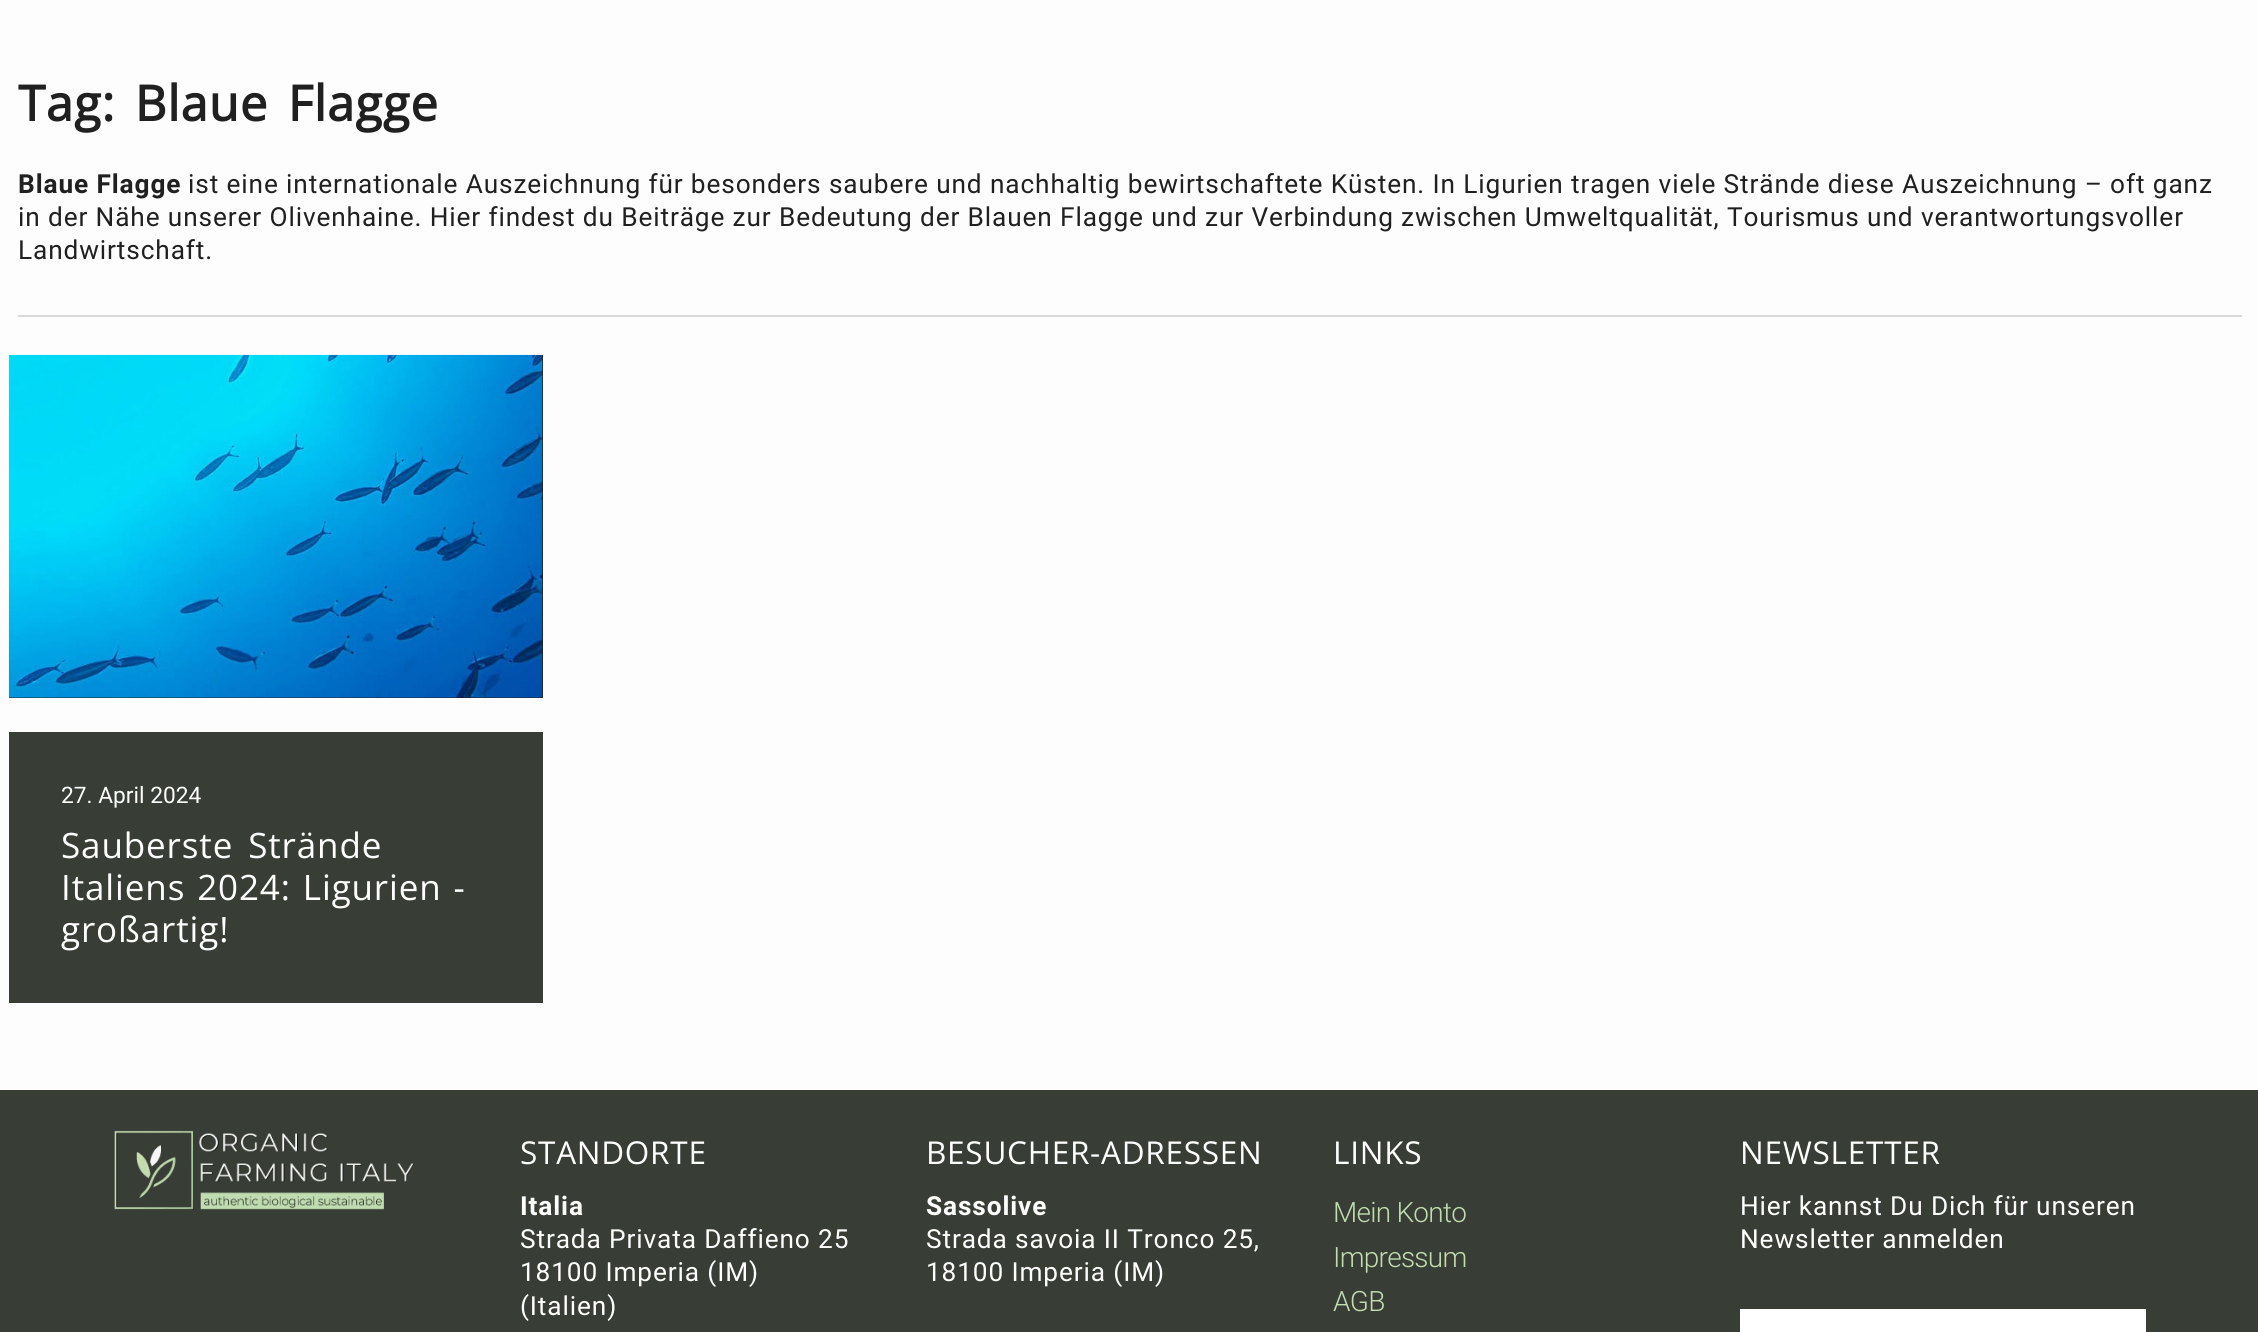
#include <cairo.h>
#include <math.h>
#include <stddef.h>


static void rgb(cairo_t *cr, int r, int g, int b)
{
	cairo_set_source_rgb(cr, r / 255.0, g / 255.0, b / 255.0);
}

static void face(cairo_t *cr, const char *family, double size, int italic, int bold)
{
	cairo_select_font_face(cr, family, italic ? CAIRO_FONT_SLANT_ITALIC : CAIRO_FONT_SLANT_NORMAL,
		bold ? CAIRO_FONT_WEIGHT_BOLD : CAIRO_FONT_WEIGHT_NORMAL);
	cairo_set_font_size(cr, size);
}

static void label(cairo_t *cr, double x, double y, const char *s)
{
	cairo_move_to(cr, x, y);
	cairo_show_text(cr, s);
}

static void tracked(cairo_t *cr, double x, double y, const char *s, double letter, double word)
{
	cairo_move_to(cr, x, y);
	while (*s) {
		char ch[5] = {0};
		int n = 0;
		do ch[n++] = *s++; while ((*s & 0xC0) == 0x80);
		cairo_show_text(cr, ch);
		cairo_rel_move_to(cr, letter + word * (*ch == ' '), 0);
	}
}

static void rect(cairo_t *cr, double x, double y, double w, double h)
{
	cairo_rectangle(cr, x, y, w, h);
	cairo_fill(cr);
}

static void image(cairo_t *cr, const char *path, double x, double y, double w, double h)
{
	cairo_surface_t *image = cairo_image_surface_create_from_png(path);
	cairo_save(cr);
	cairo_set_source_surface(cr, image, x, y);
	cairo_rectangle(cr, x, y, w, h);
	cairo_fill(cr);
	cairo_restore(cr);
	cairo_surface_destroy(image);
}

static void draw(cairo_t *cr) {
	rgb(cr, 253, 253, 253);
	cairo_paint(cr);
	face(cr, "Open Sans", 49, 0, 1);
	rgb(cr, 32, 32, 32);
	tracked(cr, 18, 121, "Tag: Blaue Flagge", 0.88, 6);
	face(cr, "Roboto", 26.25, 0, 1);
	tracked(cr, 18, 193, "Blaue Flagge", 0.88, 0);
	face(cr, "Roboto", 26.25, 0, 0);
	tracked(cr, 188, 193, "ist eine internationale Auszeichnung für besonders saubere und nachhaltig bewirtschaftete Küsten. In Ligurien tragen viele Strände diese Auszeichnung – oft ganz", 0.88, 0);
	tracked(cr, 18, 226, "in der Nähe unserer Olivenhaine. Hier findest du Beiträge zur Bedeutung der Blauen Flagge und zur Verbindung zwischen Umweltqualität, Tourismus und verantwortungsvoller", 0.88, 0);
	tracked(cr, 18, 259, "Landwirtschaft.", 0.88, 0);
	rgb(cr, 217, 217, 217);
	rect(cr, 18, 315, 2224, 2);
	rgb(cr, 33, 33, 33);
	rect(cr, 9, 355, 534, 343);
	image(cr, "image0.png", 8, 354, 535, 344);
	rgb(cr, 56, 62, 53);
	rect(cr, 9, 732, 534, 271);
	face(cr, "Roboto", 22.75, 0, 0);
	rgb(cr, 255, 255, 255);
	label(cr, 61, 803, "27. April 2024");
	face(cr, "Open Sans", 35, 0, 0);
	tracked(cr, 61, 858, "Sauberste Strände", 0.88, 5);
	tracked(cr, 61, 900, "Italiens 2024: Ligurien -", 0.88, 2);
	tracked(cr, 61, 942, "großartig!", 0.88, 0);
	rgb(cr, 56, 62, 53);
	rect(cr, 0, 1090, 2258, 242);
	image(cr, "image1.png", 114, 1130, 300, 80);
	face(cr, "Open Sans", 31.5, 0, 0);
	rgb(cr, 255, 255, 255);
	tracked(cr, 520, 1164, "STANDORTE", 0.75, 0);
	face(cr, "Roboto", 26.25, 0, 1);
	tracked(cr, 520, 1215, "Italia", 0.88, 0);
	face(cr, "Roboto", 26.25, 0, 0);
	tracked(cr, 520, 1248, "Strada Privata Daffieno 25", 0.88, 0);
	tracked(cr, 520, 1281, "18100 Imperia (IM)", 0.88, 0);
	tracked(cr, 520, 1315, "(Italien)", 0.88, 0);
	face(cr, "Open Sans", 31.5, 0, 0);
	tracked(cr, 926, 1164, "BESUCHER-ADRESSEN", 0.75, 0);
	face(cr, "Roboto", 26.25, 0, 1);
	tracked(cr, 926, 1215, "Sassolive", 0.88, 0);
	face(cr, "Roboto", 26.25, 0, 0);
	tracked(cr, 926, 1248, "Strada savoia II Tronco 25,", 0.88, 0);
	tracked(cr, 926, 1281, "18100 Imperia (IM)", 0.88, 0);
	face(cr, "Open Sans", 31.5, 0, 0);
	tracked(cr, 1333, 1164, "LINKS", 0.75, 0);
	face(cr, "Roboto Light", 28, 0, 0);
	rgb(cr, 193, 220, 175);
	tracked(cr, 1333, 1222, "Mein Konto", -0.75, 0);
	tracked(cr, 1333, 1267, "Impressum", -0.75, 0);
	tracked(cr, 1333, 1311, "AGB", -0.75, 0);
	face(cr, "Open Sans", 31.5, 0, 0);
	rgb(cr, 255, 255, 255);
	tracked(cr, 1740, 1164, "NEWSLETTER", 0.75, 0);
	face(cr, "Roboto", 26.25, 0, 0);
	tracked(cr, 1740, 1215, "Hier kannst Du Dich für unseren", 0.88, 0);
	tracked(cr, 1740, 1248, "Newsletter anmelden", 0.88, 0);
	rect(cr, 1740, 1309, 406, 23);
}

int main(void) {
	cairo_surface_t *surface = cairo_image_surface_create(CAIRO_FORMAT_RGB24, 2258, 1332);
	cairo_t *cr = cairo_create(surface);
	cairo_font_options_t *options = cairo_font_options_create();
	cairo_font_options_set_hint_metrics(options, CAIRO_HINT_METRICS_OFF);
	cairo_font_options_set_hint_style(options, CAIRO_HINT_STYLE_NONE);
	cairo_set_font_options(cr, options);
	cairo_set_miter_limit(cr, 4);
	draw(cr);
	cairo_surface_write_to_png(surface, "render.png");
	cairo_font_options_destroy(options);
	cairo_destroy(cr);
	cairo_surface_destroy(surface);
	return 0;
}
